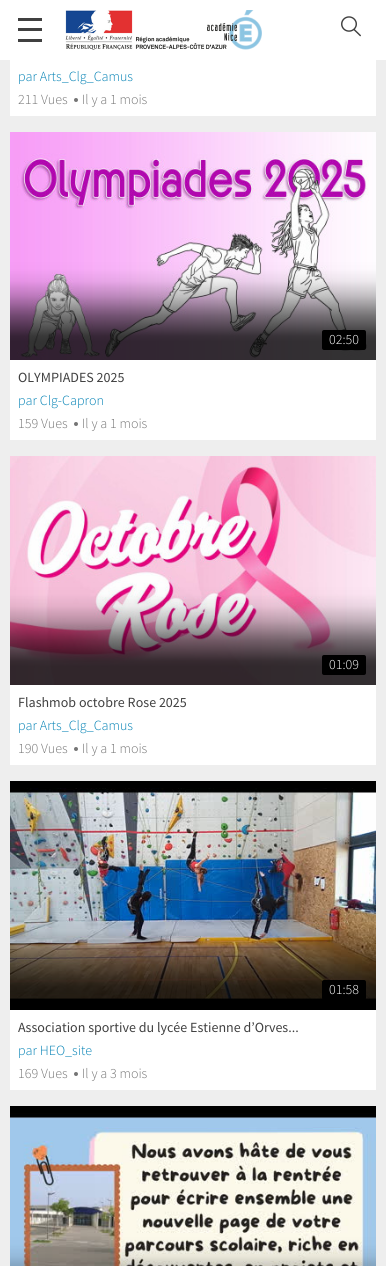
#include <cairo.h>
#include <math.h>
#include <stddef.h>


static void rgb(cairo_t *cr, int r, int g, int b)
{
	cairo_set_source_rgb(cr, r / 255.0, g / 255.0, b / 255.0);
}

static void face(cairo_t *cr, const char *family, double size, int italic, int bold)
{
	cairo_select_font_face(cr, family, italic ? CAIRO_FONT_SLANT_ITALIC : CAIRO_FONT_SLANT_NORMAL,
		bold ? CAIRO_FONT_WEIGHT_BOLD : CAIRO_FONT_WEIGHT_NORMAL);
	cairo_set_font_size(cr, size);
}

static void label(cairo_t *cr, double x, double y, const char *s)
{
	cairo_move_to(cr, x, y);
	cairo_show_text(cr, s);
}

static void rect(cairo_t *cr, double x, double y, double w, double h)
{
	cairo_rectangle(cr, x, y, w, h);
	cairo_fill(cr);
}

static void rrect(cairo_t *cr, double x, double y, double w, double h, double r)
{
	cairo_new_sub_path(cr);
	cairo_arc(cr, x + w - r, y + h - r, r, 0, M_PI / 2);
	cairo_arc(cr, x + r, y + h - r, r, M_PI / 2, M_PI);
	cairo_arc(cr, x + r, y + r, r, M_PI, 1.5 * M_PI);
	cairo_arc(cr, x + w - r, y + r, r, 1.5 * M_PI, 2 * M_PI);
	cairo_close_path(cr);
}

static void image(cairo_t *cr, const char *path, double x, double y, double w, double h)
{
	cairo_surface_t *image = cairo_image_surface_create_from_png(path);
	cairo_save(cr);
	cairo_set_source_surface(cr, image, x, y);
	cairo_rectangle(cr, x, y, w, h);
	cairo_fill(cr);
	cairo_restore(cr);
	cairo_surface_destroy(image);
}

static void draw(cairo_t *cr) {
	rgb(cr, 238, 238, 238);
	cairo_paint(cr);
	rgb(cr, 255, 255, 255);
	rect(cr, 0, 0, 386, 60);
	rgb(cr, 64, 64, 64);
	rect(cr, 18, 18, 24, 3);
	rect(cr, 18, 28, 24, 3);
	rect(cr, 18, 39, 24, 3);
	image(cr, "image0.png", 65, 10, 197, 40);
	image(cr, "image1.png", 341, 16, 20, 21);
	rgb(cr, 255, 255, 255);
	rect(cr, 10, 60, 366, 56);
	face(cr, "Source Sans Pro Light", 14, 0, 0);
	rgb(cr, 0, 128, 180);
	label(cr, 18, 81, "par Arts_Clg_Camus");
	rgb(cr, 117, 117, 117);
	label(cr, 18, 104, "211 Vues");
	cairo_new_path(cr);
	cairo_arc(cr, 76, 100, 2, 0, 2 * M_PI);
	cairo_fill(cr);
	label(cr, 82, 104, "Il y a 1 mois");
	image(cr, "image2.png", 10, 132, 366, 228);
	rgb(cr, 0, 0, 0);
	rrect(cr, 322, 330, 44, 20, 2);
	cairo_fill(cr);
	rgb(cr, 255, 255, 255);
	label(cr, 329, 344, "02:50");
	rect(cr, 10, 360, 366, 80);
	face(cr, "Source Sans Pro", 14, 0, 0);
	rgb(cr, 64, 64, 64);
	label(cr, 18, 382, "OLYMPIADES 2025");
	face(cr, "Source Sans Pro Light", 14, 0, 0);
	rgb(cr, 0, 128, 180);
	label(cr, 18, 405, "par Clg-Capron");
	rgb(cr, 117, 117, 117);
	label(cr, 18, 428, "159 Vues");
	cairo_new_path(cr);
	cairo_arc(cr, 76, 424, 2, 0, 2 * M_PI);
	cairo_fill(cr);
	label(cr, 82, 428, "Il y a 1 mois");
	image(cr, "image3.png", 10, 456, 366, 229);
	rgb(cr, 0, 0, 0);
	rrect(cr, 322, 655, 44, 20, 2);
	cairo_fill(cr);
	rgb(cr, 255, 255, 255);
	label(cr, 329, 669, "01:09");
	rect(cr, 10, 685, 366, 80);
	face(cr, "Source Sans Pro", 14, 0, 0);
	rgb(cr, 64, 64, 64);
	label(cr, 18, 707, "Flashmob octobre Rose 2025");
	face(cr, "Source Sans Pro Light", 14, 0, 0);
	rgb(cr, 0, 128, 180);
	label(cr, 18, 730, "par Arts_Clg_Camus");
	rgb(cr, 117, 117, 117);
	label(cr, 18, 753, "190 Vues");
	cairo_new_path(cr);
	cairo_arc(cr, 76, 749, 2, 0, 2 * M_PI);
	cairo_fill(cr);
	label(cr, 82, 753, "Il y a 1 mois");
	image(cr, "image4.png", 10, 781, 366, 229);
	rgb(cr, 0, 0, 0);
	rrect(cr, 322, 980, 44, 20, 2);
	cairo_fill(cr);
	rgb(cr, 255, 255, 255);
	label(cr, 329, 994, "01:58");
	rect(cr, 10, 1010, 366, 80);
	face(cr, "Source Sans Pro", 14, 0, 0);
	rgb(cr, 64, 64, 64);
	label(cr, 18, 1032, "Association sportive du lycée Estienne d’Orves...");
	face(cr, "Source Sans Pro Light", 14, 0, 0);
	rgb(cr, 0, 128, 180);
	label(cr, 18, 1055, "par HEO_site");
	rgb(cr, 117, 117, 117);
	label(cr, 18, 1078, "169 Vues");
	cairo_new_path(cr);
	cairo_arc(cr, 76, 1074, 2, 0, 2 * M_PI);
	cairo_fill(cr);
	label(cr, 82, 1078, "Il y a 3 mois");
	image(cr, "image5.png", 10, 1106, 366, 160);
}

int main(void) {
	cairo_surface_t *surface = cairo_image_surface_create(CAIRO_FORMAT_RGB24, 386, 1266);
	cairo_t *cr = cairo_create(surface);
	cairo_font_options_t *options = cairo_font_options_create();
	cairo_font_options_set_hint_metrics(options, CAIRO_HINT_METRICS_OFF);
	cairo_font_options_set_hint_style(options, CAIRO_HINT_STYLE_NONE);
	cairo_set_font_options(cr, options);
	cairo_set_miter_limit(cr, 4);
	draw(cr);
	cairo_surface_write_to_png(surface, "render.png");
	cairo_font_options_destroy(options);
	cairo_destroy(cr);
	cairo_surface_destroy(surface);
	return 0;
}
